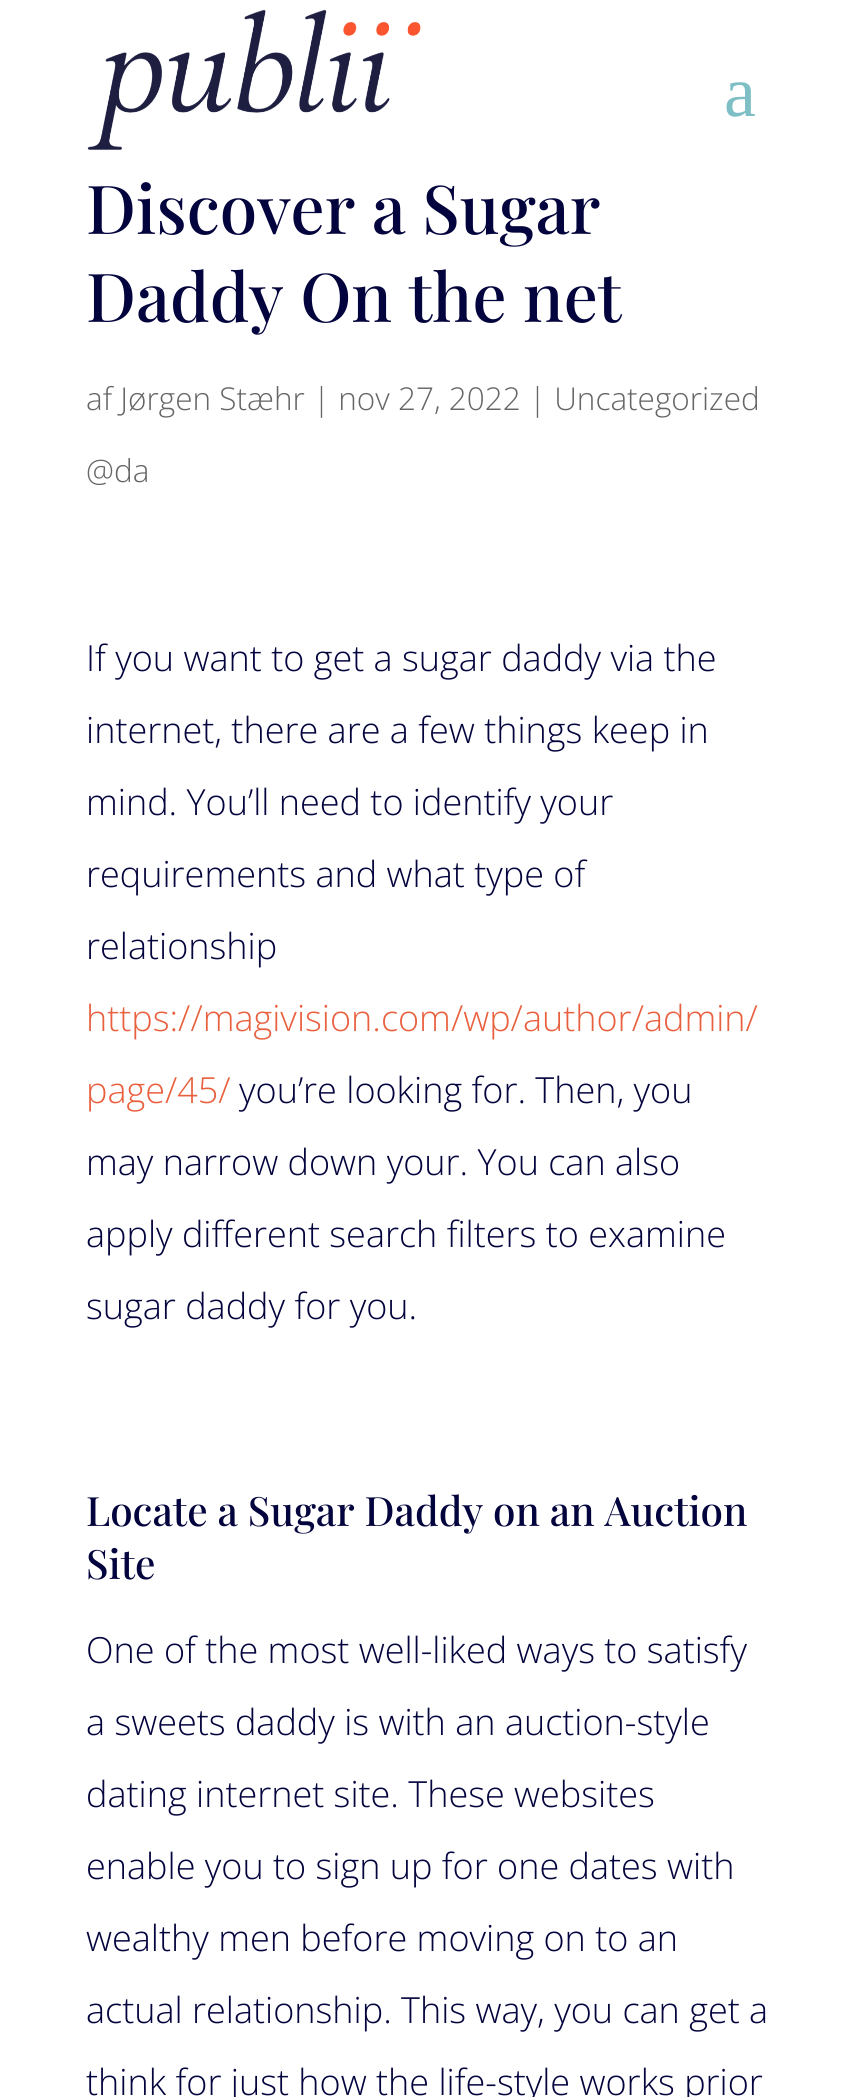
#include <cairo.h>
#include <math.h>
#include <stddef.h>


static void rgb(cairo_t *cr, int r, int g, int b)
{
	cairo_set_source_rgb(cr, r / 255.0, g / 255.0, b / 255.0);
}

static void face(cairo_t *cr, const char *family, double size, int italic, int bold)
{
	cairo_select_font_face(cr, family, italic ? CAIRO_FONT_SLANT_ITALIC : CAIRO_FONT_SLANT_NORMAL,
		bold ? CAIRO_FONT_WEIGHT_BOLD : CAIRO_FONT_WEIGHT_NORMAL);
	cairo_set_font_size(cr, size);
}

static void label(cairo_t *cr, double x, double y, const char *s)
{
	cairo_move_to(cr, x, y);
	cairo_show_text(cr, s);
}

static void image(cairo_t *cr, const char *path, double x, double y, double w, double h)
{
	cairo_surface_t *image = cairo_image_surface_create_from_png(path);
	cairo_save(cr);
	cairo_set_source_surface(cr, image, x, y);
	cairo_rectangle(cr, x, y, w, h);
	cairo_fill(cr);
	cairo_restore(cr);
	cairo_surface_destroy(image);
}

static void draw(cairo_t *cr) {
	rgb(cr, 255, 255, 255);
	cairo_paint(cr);
	image(cr, "image0.png", 87, 9, 334, 141);
	face(cr, "Liberation Serif", 72, 0, 0);
	rgb(cr, 126, 190, 197);
	label(cr, 724, 116, "a");
	face(cr, "Playfair Display Medium", 67.5, 0, 0);
	rgb(cr, 3, 3, 61);
	label(cr, 86, 234, "Discover a Sugar");
	label(cr, 86, 322, "Daddy On the net");
	face(cr, "Open Sans Light", 31.5, 0, 0);
	rgb(cr, 102, 102, 102);
	label(cr, 86, 410, "af Jørgen Stæhr | nov 27, 2022 | Uncategorized");
	label(cr, 86, 482, "@da");
	face(cr, "Open Sans Light", 36, 0, 0);
	rgb(cr, 3, 3, 61);
	label(cr, 86, 671, "If you want to get a sugar daddy via the");
	label(cr, 86, 743, "internet, there are a few things keep in");
	label(cr, 86, 815, "mind. You’ll need to identify your");
	label(cr, 86, 887, "requirements and what type of");
	label(cr, 86, 959, "relationship");
	rgb(cr, 233, 96, 63);
	label(cr, 86, 1031, "https://magivision.com/wp/author/admin/");
	label(cr, 86, 1103, "page/45/");
	rgb(cr, 3, 3, 61);
	label(cr, 239, 1103, "you’re looking for. Then, you");
	label(cr, 86, 1175, "may narrow down your. You can also");
	label(cr, 86, 1247, "apply different search filters to examine");
	label(cr, 86, 1319, "sugar daddy for you.");
	face(cr, "Playfair Display Medium", 40.5, 0, 0);
	label(cr, 86, 1526, "Locate a Sugar Daddy on an Auction");
	label(cr, 86, 1579, "Site");
	face(cr, "Open Sans Light", 36, 0, 0);
	label(cr, 86, 1663, "One of the most well-liked ways to satisfy");
	label(cr, 86, 1735, "a sweets daddy is with an auction-style");
	label(cr, 86, 1807, "dating internet site. These websites");
	label(cr, 86, 1879, "enable you to sign up for one dates with");
	label(cr, 86, 1951, "wealthy men before moving on to an");
	label(cr, 86, 2023, "actual relationship. This way, you can get a");
	label(cr, 86, 2095, "think for just how the life-style works prior");
}

int main(void) {
	cairo_surface_t *surface = cairo_image_surface_create(CAIRO_FORMAT_RGB24, 853, 2097);
	cairo_t *cr = cairo_create(surface);
	cairo_font_options_t *options = cairo_font_options_create();
	cairo_font_options_set_hint_metrics(options, CAIRO_HINT_METRICS_OFF);
	cairo_font_options_set_hint_style(options, CAIRO_HINT_STYLE_NONE);
	cairo_set_font_options(cr, options);
	cairo_set_miter_limit(cr, 4);
	draw(cr);
	cairo_surface_write_to_png(surface, "render.png");
	cairo_font_options_destroy(options);
	cairo_destroy(cr);
	cairo_surface_destroy(surface);
	return 0;
}
